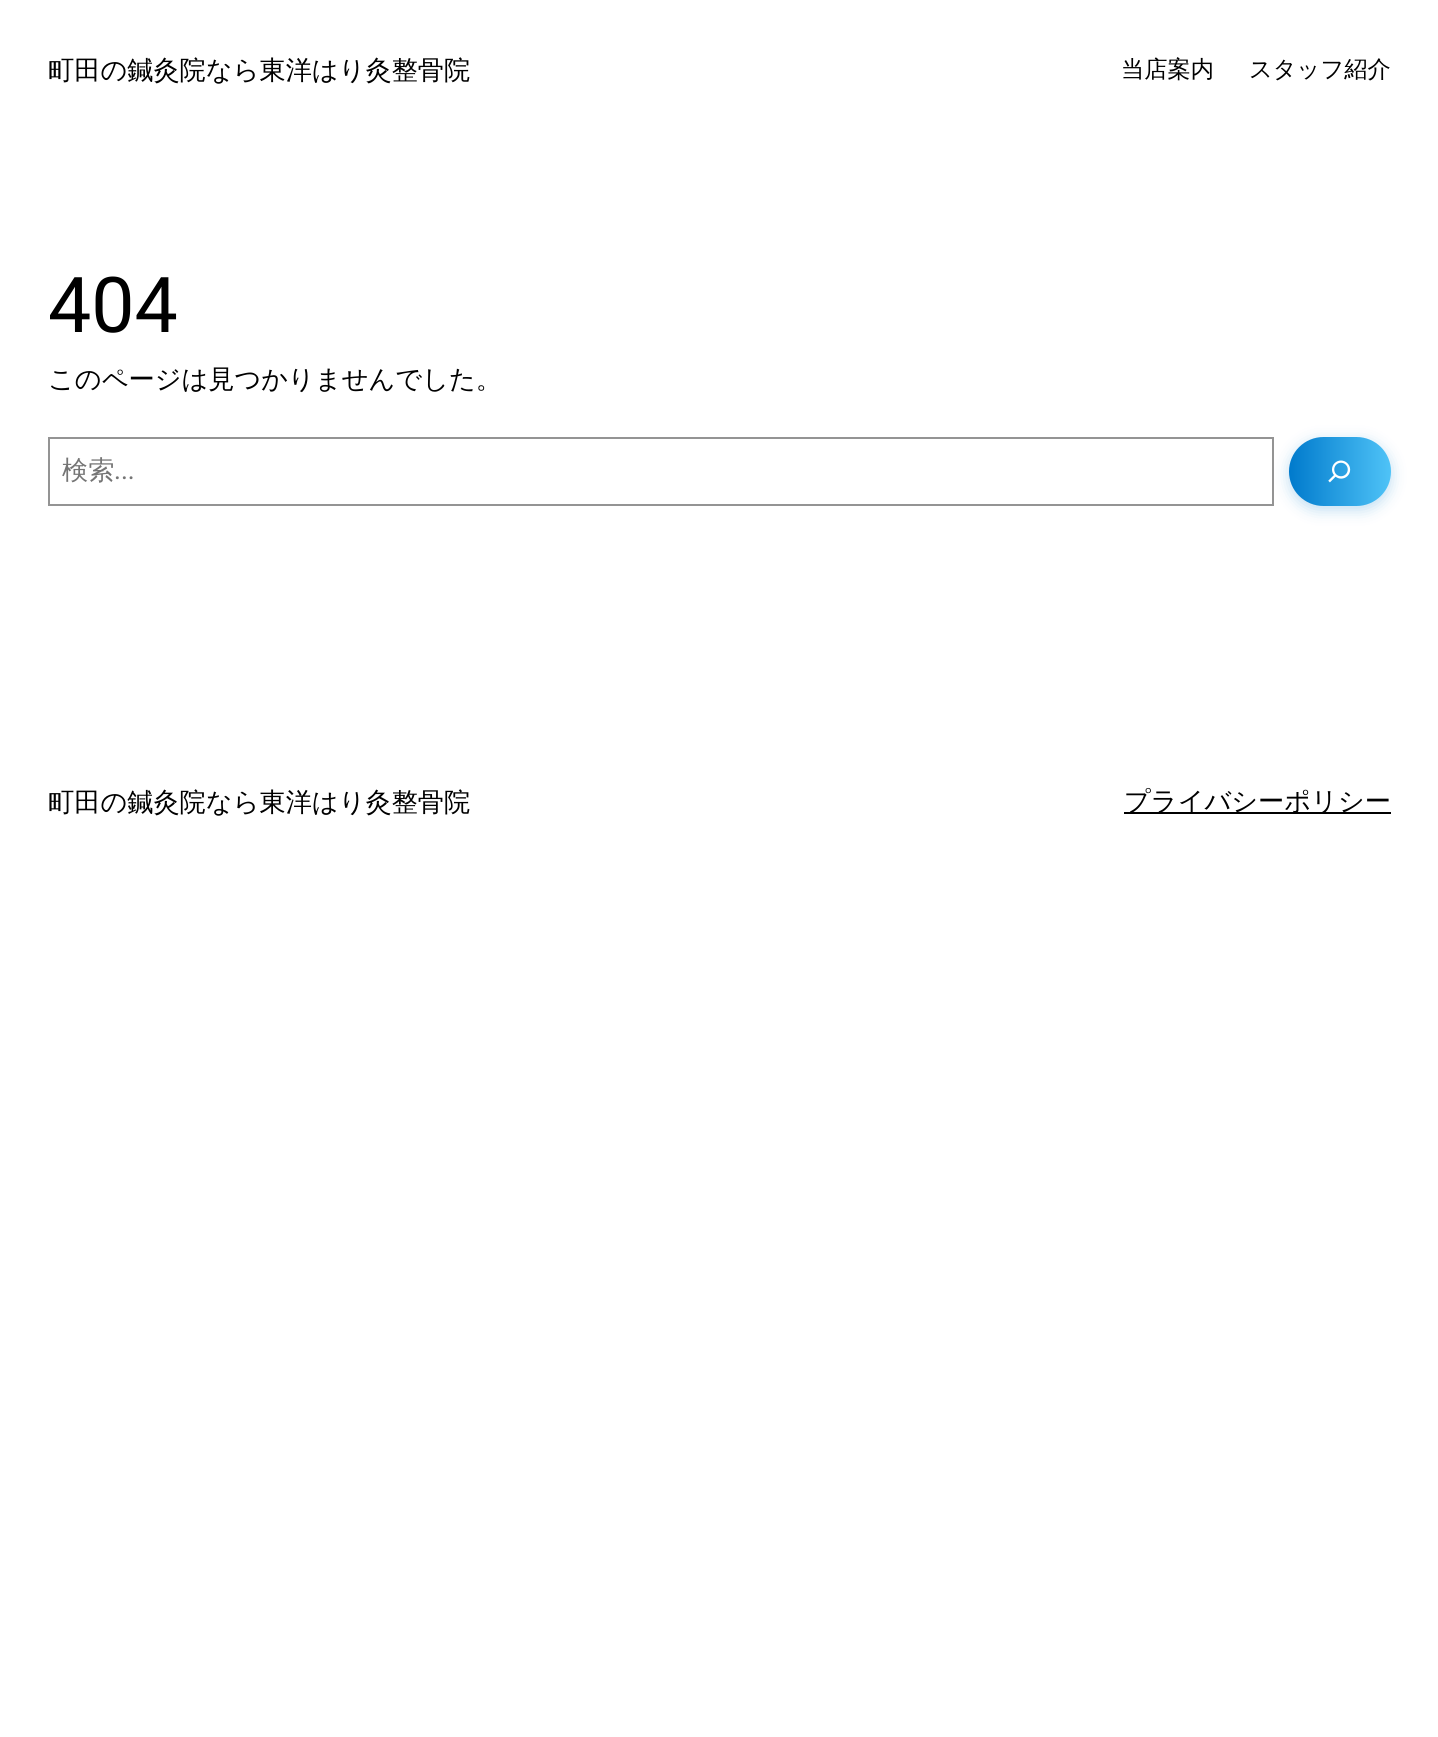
#include <cairo.h>
#include <math.h>
#include <stddef.h>


static void rgb(cairo_t *cr, int r, int g, int b)
{
	cairo_set_source_rgb(cr, r / 255.0, g / 255.0, b / 255.0);
}

static void face(cairo_t *cr, const char *family, double size, int italic, int bold)
{
	cairo_select_font_face(cr, family, italic ? CAIRO_FONT_SLANT_ITALIC : CAIRO_FONT_SLANT_NORMAL,
		bold ? CAIRO_FONT_WEIGHT_BOLD : CAIRO_FONT_WEIGHT_NORMAL);
	cairo_set_font_size(cr, size);
}

static void label(cairo_t *cr, double x, double y, const char *s)
{
	cairo_move_to(cr, x, y);
	cairo_show_text(cr, s);
}

static void rect(cairo_t *cr, double x, double y, double w, double h)
{
	cairo_rectangle(cr, x, y, w, h);
	cairo_fill(cr);
}

static void rrect(cairo_t *cr, double x, double y, double w, double h, double r)
{
	cairo_new_sub_path(cr);
	cairo_arc(cr, x + w - r, y + h - r, r, 0, M_PI / 2);
	cairo_arc(cr, x + r, y + h - r, r, M_PI / 2, M_PI);
	cairo_arc(cr, x + r, y + r, r, M_PI, 1.5 * M_PI);
	cairo_arc(cr, x + w - r, y + r, r, 1.5 * M_PI, 2 * M_PI);
	cairo_close_path(cr);
}

static void soft_shadow(cairo_t *cr, double x, double y, double w, double h, double r, double blur, double alpha)
{
	cairo_push_group_with_content(cr, CAIRO_CONTENT_ALPHA);
	cairo_set_operator(cr, CAIRO_OPERATOR_SOURCE);
	for (int i = 15; i >= -15 && fmin(w, h) + blur * i / 3 > 0; i -= 2) {
		double e = blur * i / 6;
		cairo_set_source_rgba(cr, 0, 0, 0, alpha * erfc((i - 1) / 8.5) / 2);
		rrect(cr, x - e, y - e, w + 2 * e, h + 2 * e, fmax(0, fmin(r + e + blur * .6, fmin(w, h) / 2 + e)));
		cairo_fill(cr);
	}
	cairo_pattern_t *soft = cairo_pop_group(cr);
	cairo_mask(cr, soft);
	cairo_pattern_destroy(soft);
}

static void image(cairo_t *cr, const char *path, double x, double y, double w, double h)
{
	cairo_surface_t *image = cairo_image_surface_create_from_png(path);
	cairo_save(cr);
	cairo_set_source_surface(cr, image, x, y);
	cairo_rectangle(cr, x, y, w, h);
	cairo_fill(cr);
	cairo_restore(cr);
	cairo_surface_destroy(image);
}

static void draw(cairo_t *cr) {
	cairo_pattern_t *gradient;
	rgb(cr, 255, 255, 255);
	cairo_paint(cr);
	face(cr, "WenQuanYi Zen Hei Medium", 26.2, 0, 0);
	rgb(cr, 0, 0, 0);
	label(cr, 48, 79, "町田の鍼灸院なら東洋はり灸整骨院");
	face(cr, "WenQuanYi Zen Hei Medium", 23.25, 0, 0);
	label(cr, 1121, 77, "当店案内");
	label(cr, 1249, 77, "スタッフ紹介");
	face(cr, "Roboto", 77, 0, 0);
	label(cr, 48, 332, "404");
	face(cr, "WenQuanYi Zen Hei Medium", 26.2, 0, 0);
	label(cr, 48, 388, "このページは見つかりませんでした。");
	cairo_rectangle(cr, 49, 438, 1224, 67);
	rgb(cr, 148, 148, 148);
	cairo_stroke(cr);
	rgb(cr, 117, 117, 117);
	label(cr, 62, 479, "検索");
	face(cr, "Roboto", 26.2, 0, 0);
	label(cr, 114, 479, "...");
	rgb(cr, 0, 122, 204);
	soft_shadow(cr, 1289, 441, 102, 69, 34.5, 7.5, 0.25);
	gradient = cairo_pattern_create_linear(1289, 471, 1391, 471);
	cairo_pattern_add_color_stop_rgba(gradient, 0, 0, 0.478, 0.8, 1);
	cairo_pattern_add_color_stop_rgba(gradient, 1, 0.31, 0.765, 0.969, 1);
	cairo_set_source(cr, gradient);
	cairo_pattern_destroy(gradient);
	rrect(cr, 1289, 437, 102, 69, 34.5);
	cairo_fill(cr);
	image(cr, "image0.png", 1328, 460, 23, 23);
	face(cr, "WenQuanYi Zen Hei Medium", 26.2, 0, 0);
	rgb(cr, 0, 0, 0);
	label(cr, 48, 811, "町田の鍼灸院なら東洋はり灸整骨院");
	rect(cr, 1124, 812, 267, 2);
	label(cr, 1124, 810, "プライバシーポリシー");
}

int main(void) {
	cairo_surface_t *surface = cairo_image_surface_create(CAIRO_FORMAT_RGB24, 1438, 1737);
	cairo_t *cr = cairo_create(surface);
	cairo_font_options_t *options = cairo_font_options_create();
	cairo_font_options_set_hint_metrics(options, CAIRO_HINT_METRICS_OFF);
	cairo_font_options_set_hint_style(options, CAIRO_HINT_STYLE_NONE);
	cairo_set_font_options(cr, options);
	cairo_set_miter_limit(cr, 4);
	draw(cr);
	cairo_surface_write_to_png(surface, "render.png");
	cairo_font_options_destroy(options);
	cairo_destroy(cr);
	cairo_surface_destroy(surface);
	return 0;
}
